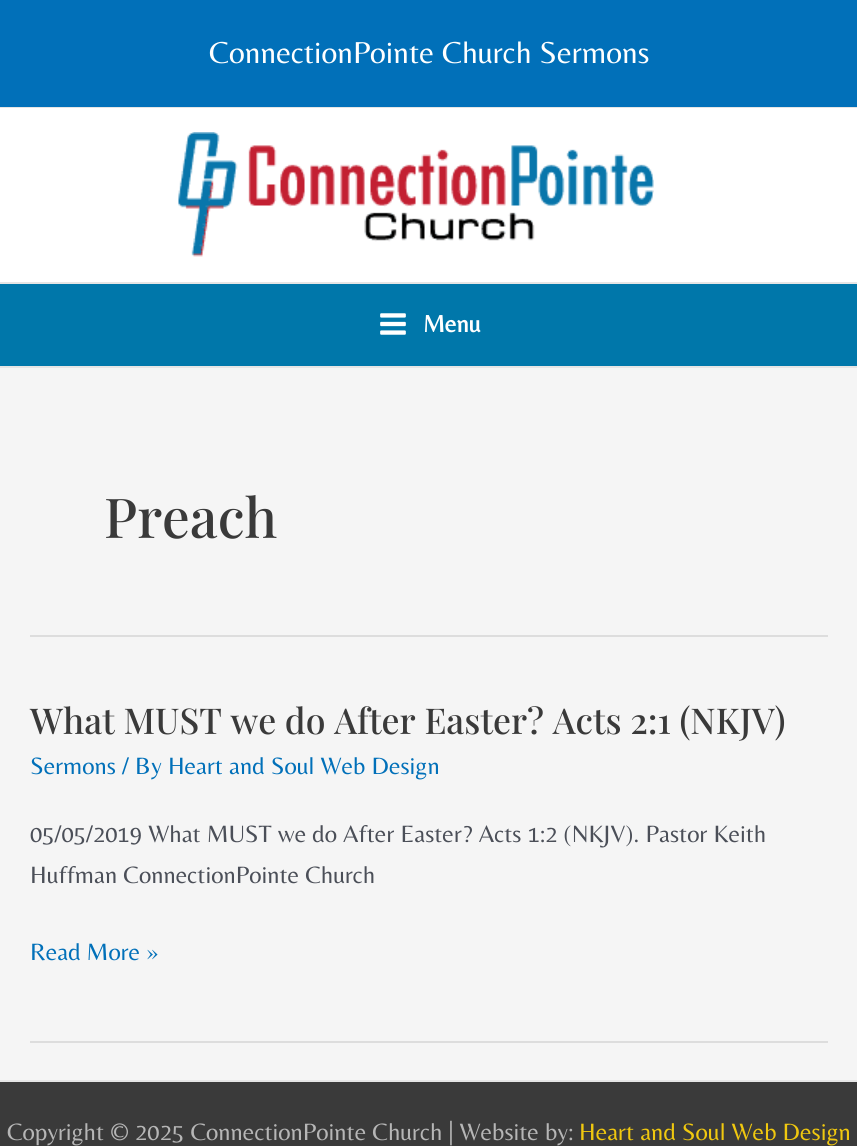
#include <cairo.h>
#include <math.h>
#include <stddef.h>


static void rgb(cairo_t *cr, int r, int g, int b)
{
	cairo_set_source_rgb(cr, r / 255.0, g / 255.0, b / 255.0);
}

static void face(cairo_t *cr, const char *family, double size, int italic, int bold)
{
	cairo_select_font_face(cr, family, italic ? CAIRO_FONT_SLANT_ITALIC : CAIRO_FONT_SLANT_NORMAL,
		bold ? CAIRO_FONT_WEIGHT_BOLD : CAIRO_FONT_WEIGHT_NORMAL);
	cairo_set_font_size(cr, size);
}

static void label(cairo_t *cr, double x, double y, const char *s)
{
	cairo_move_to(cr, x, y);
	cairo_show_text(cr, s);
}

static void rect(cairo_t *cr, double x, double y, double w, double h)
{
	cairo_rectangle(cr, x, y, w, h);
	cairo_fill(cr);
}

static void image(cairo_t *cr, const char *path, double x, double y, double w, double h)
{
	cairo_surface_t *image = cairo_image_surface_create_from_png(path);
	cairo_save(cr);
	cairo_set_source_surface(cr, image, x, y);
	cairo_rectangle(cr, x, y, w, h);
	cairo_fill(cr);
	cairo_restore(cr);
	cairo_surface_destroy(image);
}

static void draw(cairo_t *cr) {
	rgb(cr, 245, 245, 245);
	cairo_paint(cr);
	rgb(cr, 1, 112, 185);
	rect(cr, 0, 0, 857, 107);
	rgb(cr, 229, 229, 229);
	rect(cr, 0, 107, 857, 1);
	face(cr, "Belleza", 31.5, 0, 0);
	rgb(cr, 255, 255, 255);
	label(cr, 209, 63, "ConnectionPointe Church Sermons");
	rect(cr, 0, 108, 857, 174);
	rgb(cr, 229, 229, 229);
	rect(cr, 0, 282, 857, 2);
	image(cr, "image0.png", 178, 132, 476, 125);
	rgb(cr, 0, 119, 170);
	rect(cr, 0, 284, 857, 82);
	rgb(cr, 229, 229, 229);
	rect(cr, 0, 366, 857, 2);
	image(cr, "image1.png", 380, 313, 26, 22);
	face(cr, "Belleza", 24.6, 0, 1);
	rgb(cr, 255, 255, 255);
	label(cr, 423, 332, "Menu");
	rgb(cr, 221, 221, 221);
	rect(cr, 30, 635, 798, 2);
	face(cr, "Playfair Display Medium", 55, 0, 0);
	rgb(cr, 58, 58, 58);
	label(cr, 104, 538, "Preach");
	rgb(cr, 221, 221, 221);
	rect(cr, 30, 1041, 798, 2);
	face(cr, "Playfair Display Medium", 35.6, 0, 0);
	rgb(cr, 58, 58, 58);
	label(cr, 30, 734, "What MUST we do After Easter? Acts 2:1 (NKJV)");
	face(cr, "Belleza", 24.6, 0, 0);
	rgb(cr, 1, 112, 185);
	label(cr, 30, 774, "Sermons / By Heart and Soul Web Design");
	rgb(cr, 75, 79, 88);
	label(cr, 30, 842, "05/05/2019 What MUST we do After Easter? Acts 1:2 (NKJV). Pastor Keith");
	label(cr, 30, 883, "Huffman ConnectionPointe Church");
	rgb(cr, 1, 112, 185);
	label(cr, 30, 960, "Read More »");
	rgb(cr, 58, 58, 58);
	rect(cr, 0, 1082, 857, 64);
	rgb(cr, 229, 229, 229);
	rect(cr, 0, 1080, 857, 2);
	rgb(cr, 182, 182, 182);
	label(cr, 7, 1140, "Copyright © 2025 ConnectionPointe Church | Website by:");
	rgb(cr, 240, 200, 15);
	label(cr, 579, 1140, "Heart and Soul Web Design");
}

int main(void) {
	cairo_surface_t *surface = cairo_image_surface_create(CAIRO_FORMAT_RGB24, 857, 1146);
	cairo_t *cr = cairo_create(surface);
	cairo_font_options_t *options = cairo_font_options_create();
	cairo_font_options_set_hint_metrics(options, CAIRO_HINT_METRICS_OFF);
	cairo_font_options_set_hint_style(options, CAIRO_HINT_STYLE_NONE);
	cairo_set_font_options(cr, options);
	cairo_set_miter_limit(cr, 4);
	draw(cr);
	cairo_surface_write_to_png(surface, "render.png");
	cairo_font_options_destroy(options);
	cairo_destroy(cr);
	cairo_surface_destroy(surface);
	return 0;
}
